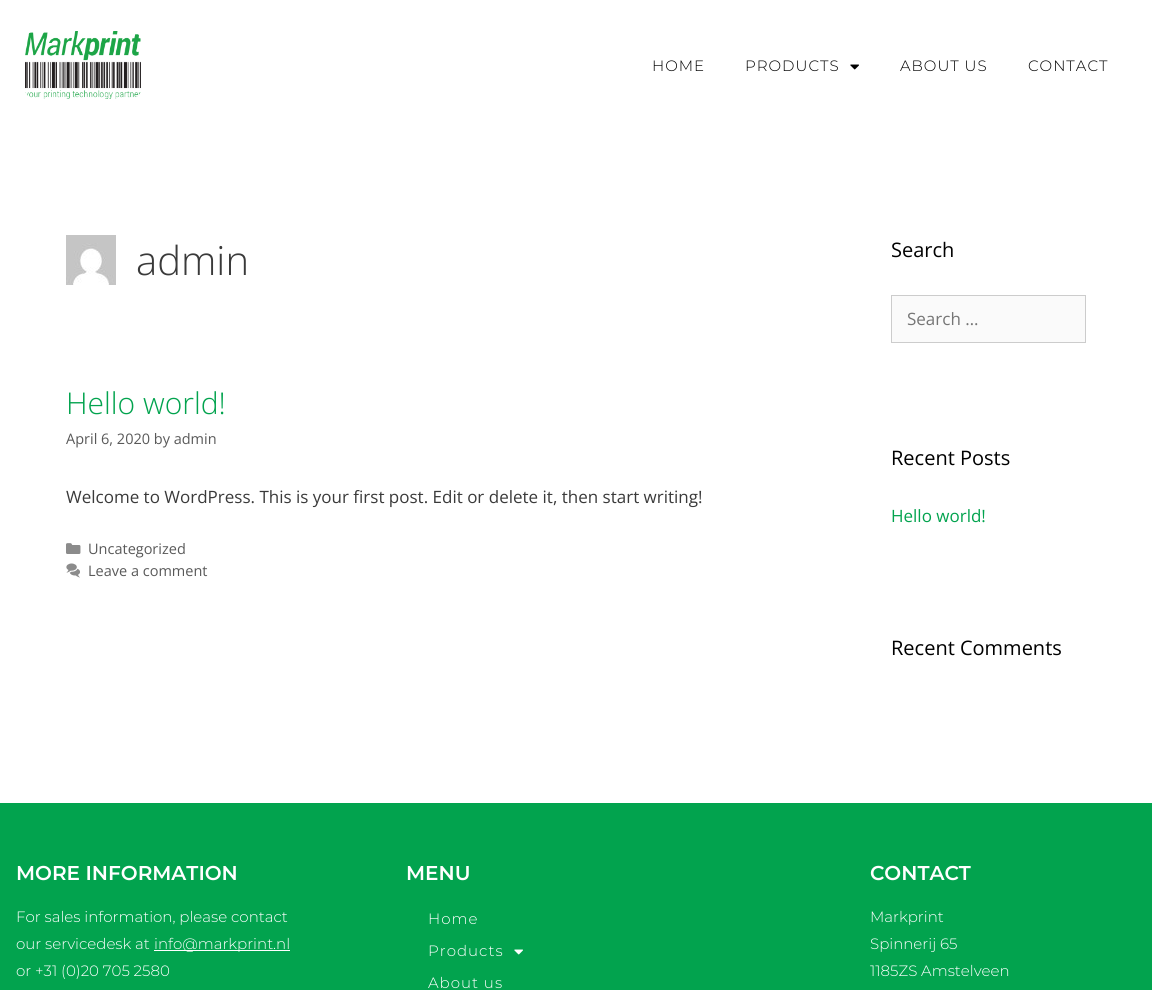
#include <cairo.h>
#include <math.h>
#include <stddef.h>


static void rgb(cairo_t *cr, int r, int g, int b)
{
	cairo_set_source_rgb(cr, r / 255.0, g / 255.0, b / 255.0);
}

static void face(cairo_t *cr, const char *family, double size, int italic, int bold)
{
	cairo_select_font_face(cr, family, italic ? CAIRO_FONT_SLANT_ITALIC : CAIRO_FONT_SLANT_NORMAL,
		bold ? CAIRO_FONT_WEIGHT_BOLD : CAIRO_FONT_WEIGHT_NORMAL);
	cairo_set_font_size(cr, size);
}

static void label(cairo_t *cr, double x, double y, const char *s)
{
	cairo_move_to(cr, x, y);
	cairo_show_text(cr, s);
}

static void tracked(cairo_t *cr, double x, double y, const char *s, double letter, double word)
{
	cairo_move_to(cr, x, y);
	while (*s) {
		char ch[5] = {0};
		int n = 0;
		do ch[n++] = *s++; while ((*s & 0xC0) == 0x80);
		cairo_show_text(cr, ch);
		cairo_rel_move_to(cr, letter + word * (*ch == ' '), 0);
	}
}

static void rect(cairo_t *cr, double x, double y, double w, double h)
{
	cairo_rectangle(cr, x, y, w, h);
	cairo_fill(cr);
}

static void image(cairo_t *cr, const char *path, double x, double y, double w, double h)
{
	cairo_surface_t *image = cairo_image_surface_create_from_png(path);
	cairo_save(cr);
	cairo_set_source_surface(cr, image, x, y);
	cairo_rectangle(cr, x, y, w, h);
	cairo_fill(cr);
	cairo_restore(cr);
	cairo_surface_destroy(image);
}

static void draw(cairo_t *cr) {
	rgb(cr, 255, 255, 255);
	cairo_paint(cr);
	image(cr, "image0.png", 25, 31, 116, 68);
	face(cr, "Montserrat Light", 15, 0, 0);
	rgb(cr, 0, 0, 0);
	tracked(cr, 652, 71, "HOME", 1, 0);
	tracked(cr, 745, 71, "PRODUCTS", 1, 0);
	image(cr, "image1.png", 850, 64, 9, 6);
	tracked(cr, 900, 71, "ABOUT US", 1, 0);
	tracked(cr, 1028, 71, "CONTACT", 1, 0);
	image(cr, "image2.png", 66, 235, 50, 50);
	face(cr, "Open Sans Light", 40, 0, 0);
	rgb(cr, 58, 58, 58);
	label(cr, 136, 275, "admin");
	face(cr, "Open Sans Light", 30, 0, 0);
	rgb(cr, 2, 163, 78);
	label(cr, 66, 414, "Hello world!");
	face(cr, "Open Sans", 14.5, 0, 0);
	rgb(cr, 89, 89, 89);
	label(cr, 66, 444, "April 6, 2020 by admin");
	face(cr, "Open Sans", 17, 0, 0);
	rgb(cr, 58, 58, 58);
	label(cr, 66, 503, "Welcome to WordPress. This is your first post. Edit or delete it, then start writing!");
	image(cr, "image3.png", 66, 543, 15, 11);
	face(cr, "Open Sans", 14.5, 0, 0);
	rgb(cr, 89, 89, 89);
	label(cr, 88, 554, "Uncategorized");
	image(cr, "image4.png", 66, 563, 14, 15);
	label(cr, 88, 576, "Leave a comment");
	face(cr, "Open Sans", 20, 0, 0);
	rgb(cr, 0, 0, 0);
	label(cr, 891, 257, "Search");
	rgb(cr, 250, 250, 250);
	cairo_rectangle(cr, 891.5, 295.5, 194, 47);
	cairo_fill_preserve(cr);
	rgb(cr, 204, 204, 204);
	cairo_set_line_width(cr, 1);
	cairo_stroke(cr);
	face(cr, "Open Sans", 17, 0, 0);
	rgb(cr, 117, 117, 117);
	label(cr, 907, 325, "Search …");
	face(cr, "Open Sans", 20, 0, 0);
	rgb(cr, 0, 0, 0);
	label(cr, 891, 465, "Recent Posts");
	face(cr, "Open Sans", 17, 0, 0);
	rgb(cr, 2, 163, 78);
	label(cr, 891, 522, "Hello world!");
	face(cr, "Open Sans", 20, 0, 0);
	rgb(cr, 0, 0, 0);
	label(cr, 891, 655, "Recent Comments");
	rgb(cr, 2, 163, 78);
	rect(cr, 0, 803, 1152, 187);
	face(cr, "Montserrat SemiBold", 20, 0, 0);
	rgb(cr, 255, 255, 255);
	label(cr, 16, 880, "MORE INFORMATION");
	face(cr, "Montserrat Light", 15, 0, 0);
	label(cr, 16, 922, "For sales information, please contact");
	label(cr, 16, 949, "our servicedesk at");
	rect(cr, 154, 950, 136, 1);
	label(cr, 154, 949, "info@markprint.nl");
	label(cr, 16, 976, "or +31 (0)20 705 2580");
	face(cr, "Montserrat SemiBold", 20, 0, 0);
	label(cr, 406, 880, "MENU");
	face(cr, "Montserrat Light", 15, 0, 0);
	tracked(cr, 428, 924, "Home", 1, 0);
	tracked(cr, 428, 956, "Products", 1, 0);
	image(cr, "image5.png", 514, 949, 9, 6);
	tracked(cr, 428, 988, "About us", 1, 0);
	face(cr, "Montserrat SemiBold", 20, 0, 0);
	label(cr, 870, 880, "CONTACT");
	face(cr, "Montserrat Light", 15, 0, 0);
	label(cr, 870, 922, "Markprint");
	label(cr, 870, 949, "Spinnerij 65");
	label(cr, 870, 976, "1185ZS Amstelveen");
}

int main(void) {
	cairo_surface_t *surface = cairo_image_surface_create(CAIRO_FORMAT_RGB24, 1152, 990);
	cairo_t *cr = cairo_create(surface);
	cairo_font_options_t *options = cairo_font_options_create();
	cairo_font_options_set_hint_metrics(options, CAIRO_HINT_METRICS_OFF);
	cairo_font_options_set_hint_style(options, CAIRO_HINT_STYLE_NONE);
	cairo_set_font_options(cr, options);
	cairo_set_miter_limit(cr, 4);
	draw(cr);
	cairo_surface_write_to_png(surface, "render.png");
	cairo_font_options_destroy(options);
	cairo_destroy(cr);
	cairo_surface_destroy(surface);
	return 0;
}
